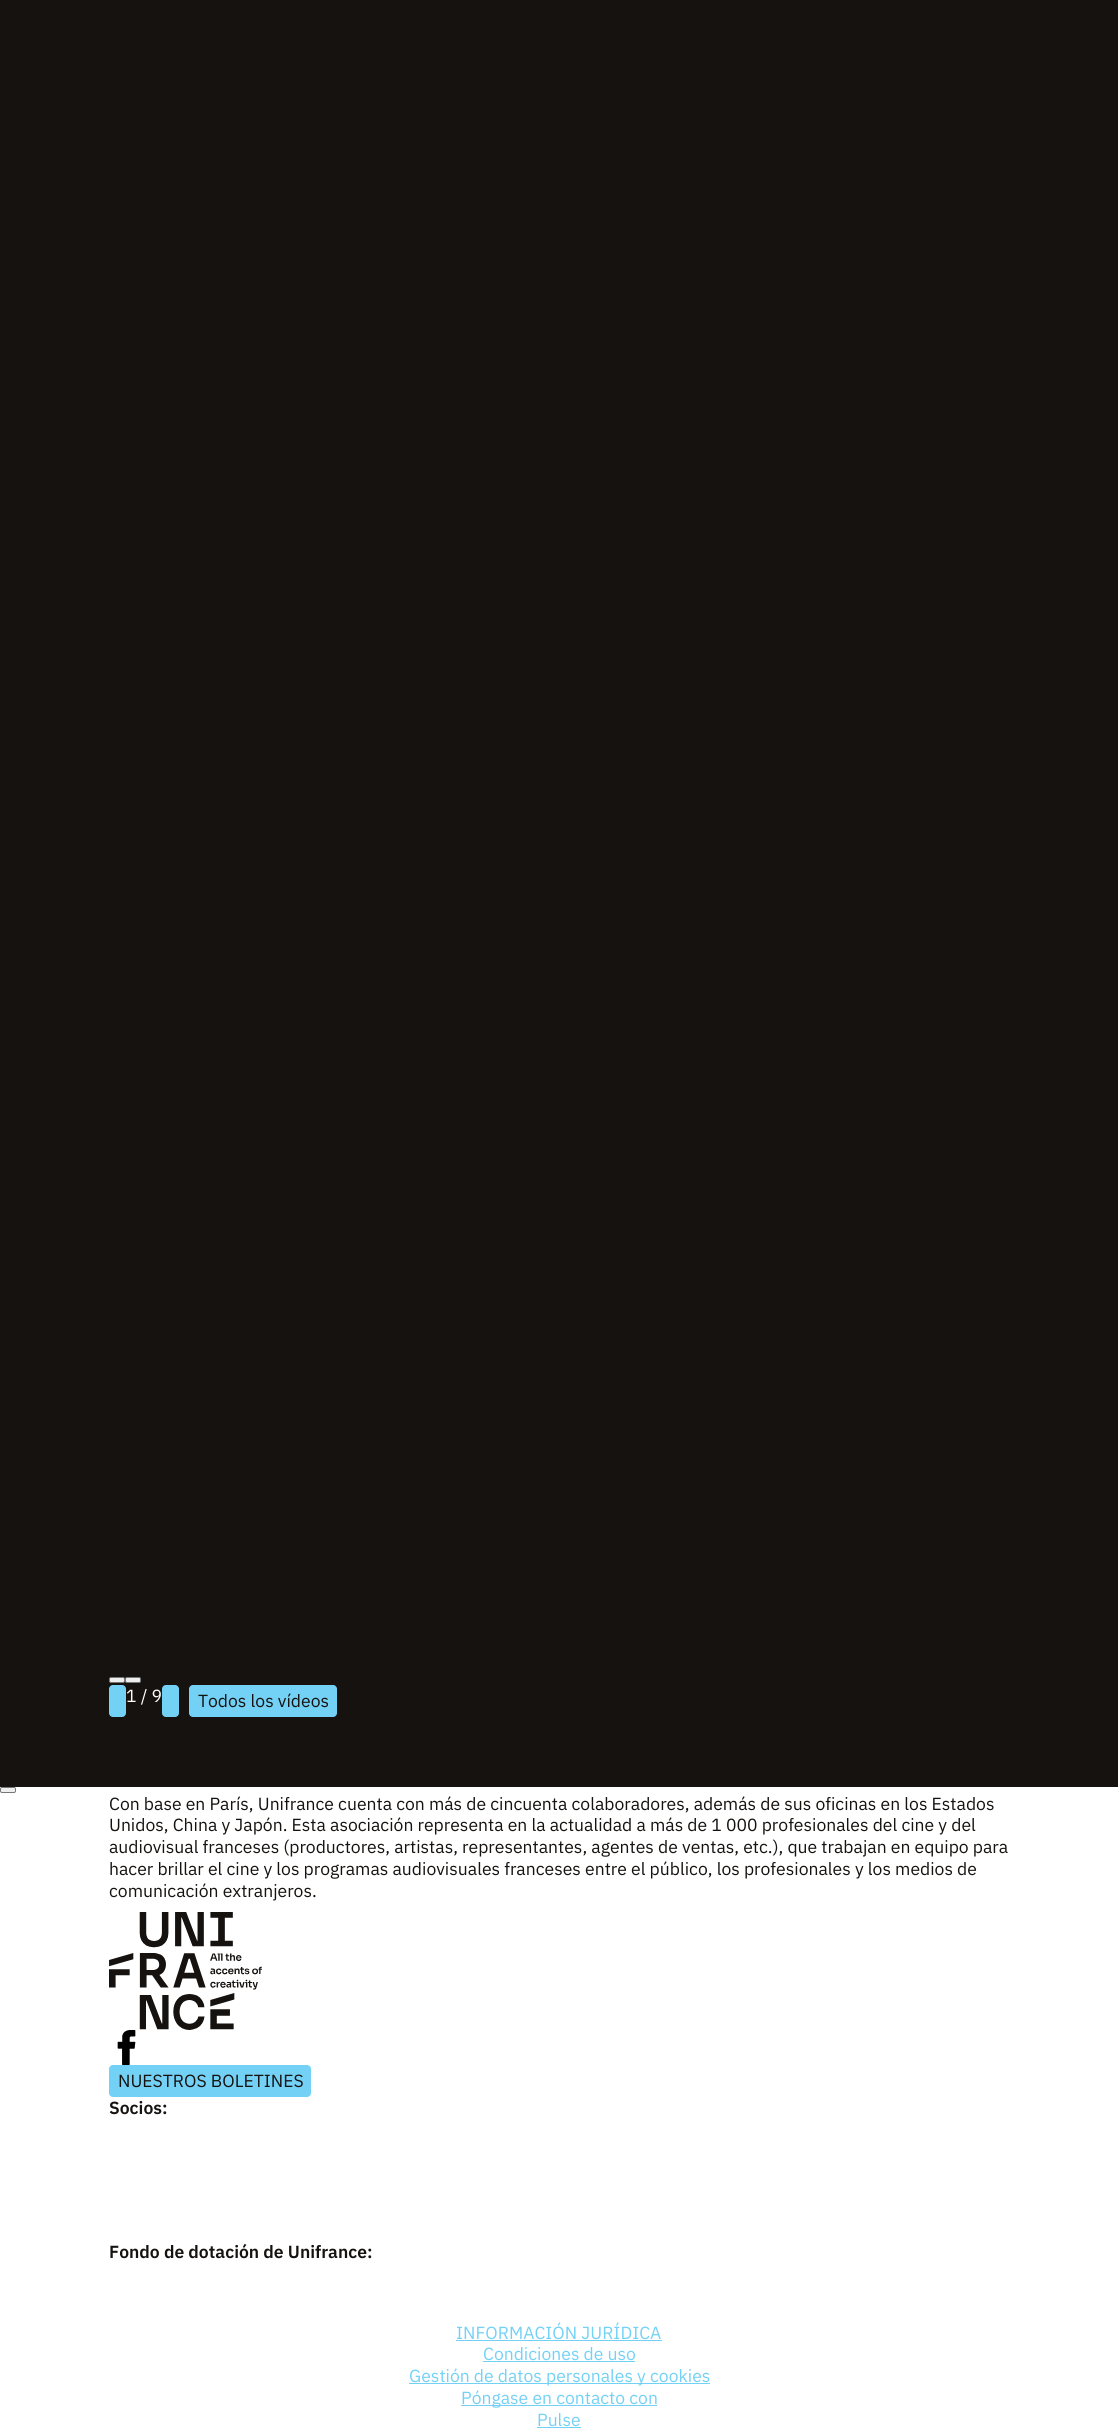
#include <cairo.h>
#include <math.h>
#include <stddef.h>


static void rgb(cairo_t *cr, int r, int g, int b)
{
	cairo_set_source_rgb(cr, r / 255.0, g / 255.0, b / 255.0);
}

static void face(cairo_t *cr, const char *family, double size, int italic, int bold)
{
	cairo_select_font_face(cr, family, italic ? CAIRO_FONT_SLANT_ITALIC : CAIRO_FONT_SLANT_NORMAL,
		bold ? CAIRO_FONT_WEIGHT_BOLD : CAIRO_FONT_WEIGHT_NORMAL);
	cairo_set_font_size(cr, size);
}

static void label(cairo_t *cr, double x, double y, const char *s)
{
	cairo_move_to(cr, x, y);
	cairo_show_text(cr, s);
}

static void rect(cairo_t *cr, double x, double y, double w, double h)
{
	cairo_rectangle(cr, x, y, w, h);
	cairo_fill(cr);
}

static void rrect(cairo_t *cr, double x, double y, double w, double h, double r)
{
	cairo_new_sub_path(cr);
	cairo_arc(cr, x + w - r, y + h - r, r, 0, M_PI / 2);
	cairo_arc(cr, x + r, y + h - r, r, M_PI / 2, M_PI);
	cairo_arc(cr, x + r, y + r, r, M_PI, 1.5 * M_PI);
	cairo_arc(cr, x + w - r, y + r, r, 1.5 * M_PI, 2 * M_PI);
	cairo_close_path(cr);
}

static void image(cairo_t *cr, const char *path, double x, double y, double w, double h)
{
	cairo_surface_t *image = cairo_image_surface_create_from_png(path);
	cairo_save(cr);
	cairo_set_source_surface(cr, image, x, y);
	cairo_rectangle(cr, x, y, w, h);
	cairo_fill(cr);
	cairo_restore(cr);
	cairo_surface_destroy(image);
}

static void draw(cairo_t *cr) {
	rgb(cr, 255, 255, 255);
	cairo_paint(cr);
	rgb(cr, 21, 18, 16);
	rect(cr, 0, 0, 1118, 1787);
	rgb(cr, 239, 239, 239);
	rrect(cr, 109.5, 1677.5, 15, 5, 1.5);
	cairo_fill_preserve(cr);
	rgb(cr, 118, 118, 118);
	cairo_set_line_width(cr, 1);
	cairo_stroke(cr);
	rgb(cr, 239, 239, 239);
	rrect(cr, 125.5, 1677.5, 15, 5, 1.5);
	cairo_fill_preserve(cr);
	rgb(cr, 118, 118, 118);
	cairo_stroke(cr);
	rgb(cr, 116, 209, 246);
	rrect(cr, 109.5, 1685.5, 16, 31, 3.5);
	cairo_fill_preserve(cr);
	cairo_stroke(cr);
	face(cr, "IBM Plex Sans", 17.55, 0, 0);
	rgb(cr, 255, 255, 255);
	label(cr, 126, 1702, "1 / 9");
	rgb(cr, 116, 209, 246);
	rrect(cr, 162.5, 1685.5, 16, 31, 3.5);
	cairo_fill_preserve(cr);
	cairo_stroke(cr);
	rrect(cr, 189.5, 1685.5, 147, 31, 3.5);
	cairo_fill_preserve(cr);
	cairo_stroke(cr);
	rgb(cr, 21, 18, 16);
	label(cr, 198, 1707, "Todos los vídeos");
	rgb(cr, 239, 239, 239);
	rrect(cr, 0.5, 1787.5, 15, 5, 1.5);
	cairo_fill_preserve(cr);
	rgb(cr, 118, 118, 118);
	cairo_stroke(cr);
	rgb(cr, 21, 18, 16);
	label(cr, 109, 1810, "Con base en París, Unifrance cuenta con más de cincuenta colaboradores, además de sus oficinas en los Estados");
	label(cr, 109, 1831, "Unidos, China y Japón. Esta asociación representa en la actualidad a más de 1 000 profesionales del cine y del");
	label(cr, 109, 1853, "audiovisual franceses (productores, artistas, representantes, agentes de ventas, etc.), que trabajan en equipo para");
	label(cr, 109, 1875, "hacer brillar el cine y los programas audiovisuales franceses entre el público, los profesionales y los medios de");
	label(cr, 109, 1897, "comunicación extranjeros.");
	image(cr, "image0.png", 109, 1912, 153, 118);
	image(cr, "image1.png", 117, 2030, 19, 35);
	rgb(cr, 116, 209, 246);
	rrect(cr, 109.5, 2065.5, 201, 31, 3.5);
	cairo_fill_preserve(cr);
	cairo_stroke(cr);
	rgb(cr, 21, 18, 16);
	label(cr, 118, 2087, "NUESTROS BOLETINES");
	face(cr, "IBM Plex Sans SemiBold", 17.55, 0, 0);
	label(cr, 109, 2114, "Socios:");
	label(cr, 109, 2258, "Fondo de dotación de Unifrance:");
	face(cr, "IBM Plex Sans", 17.55, 0, 0);
	rgb(cr, 116, 209, 246);
	label(cr, 456, 2339, "INFORMACIÓN JURÍDICA");
	rect(cr, 456, 2340, 206, 1);
	label(cr, 483, 2360, "Condiciones de uso");
	rect(cr, 483, 2361, 152, 1);
	rect(cr, 409, 2383, 301, 1);
	label(cr, 409, 2382, "Gestión de datos personales y cookies");
	rect(cr, 461, 2405, 196, 1);
	label(cr, 461, 2404, "Póngase en contacto con");
	label(cr, 537, 2426, "Pulse");
	rect(cr, 537, 2427, 44, 1);
}

int main(void) {
	cairo_surface_t *surface = cairo_image_surface_create(CAIRO_FORMAT_RGB24, 1118, 2431);
	cairo_t *cr = cairo_create(surface);
	cairo_font_options_t *options = cairo_font_options_create();
	cairo_font_options_set_hint_metrics(options, CAIRO_HINT_METRICS_OFF);
	cairo_font_options_set_hint_style(options, CAIRO_HINT_STYLE_NONE);
	cairo_set_font_options(cr, options);
	cairo_set_miter_limit(cr, 4);
	draw(cr);
	cairo_surface_write_to_png(surface, "render.png");
	cairo_font_options_destroy(options);
	cairo_destroy(cr);
	cairo_surface_destroy(surface);
	return 0;
}
